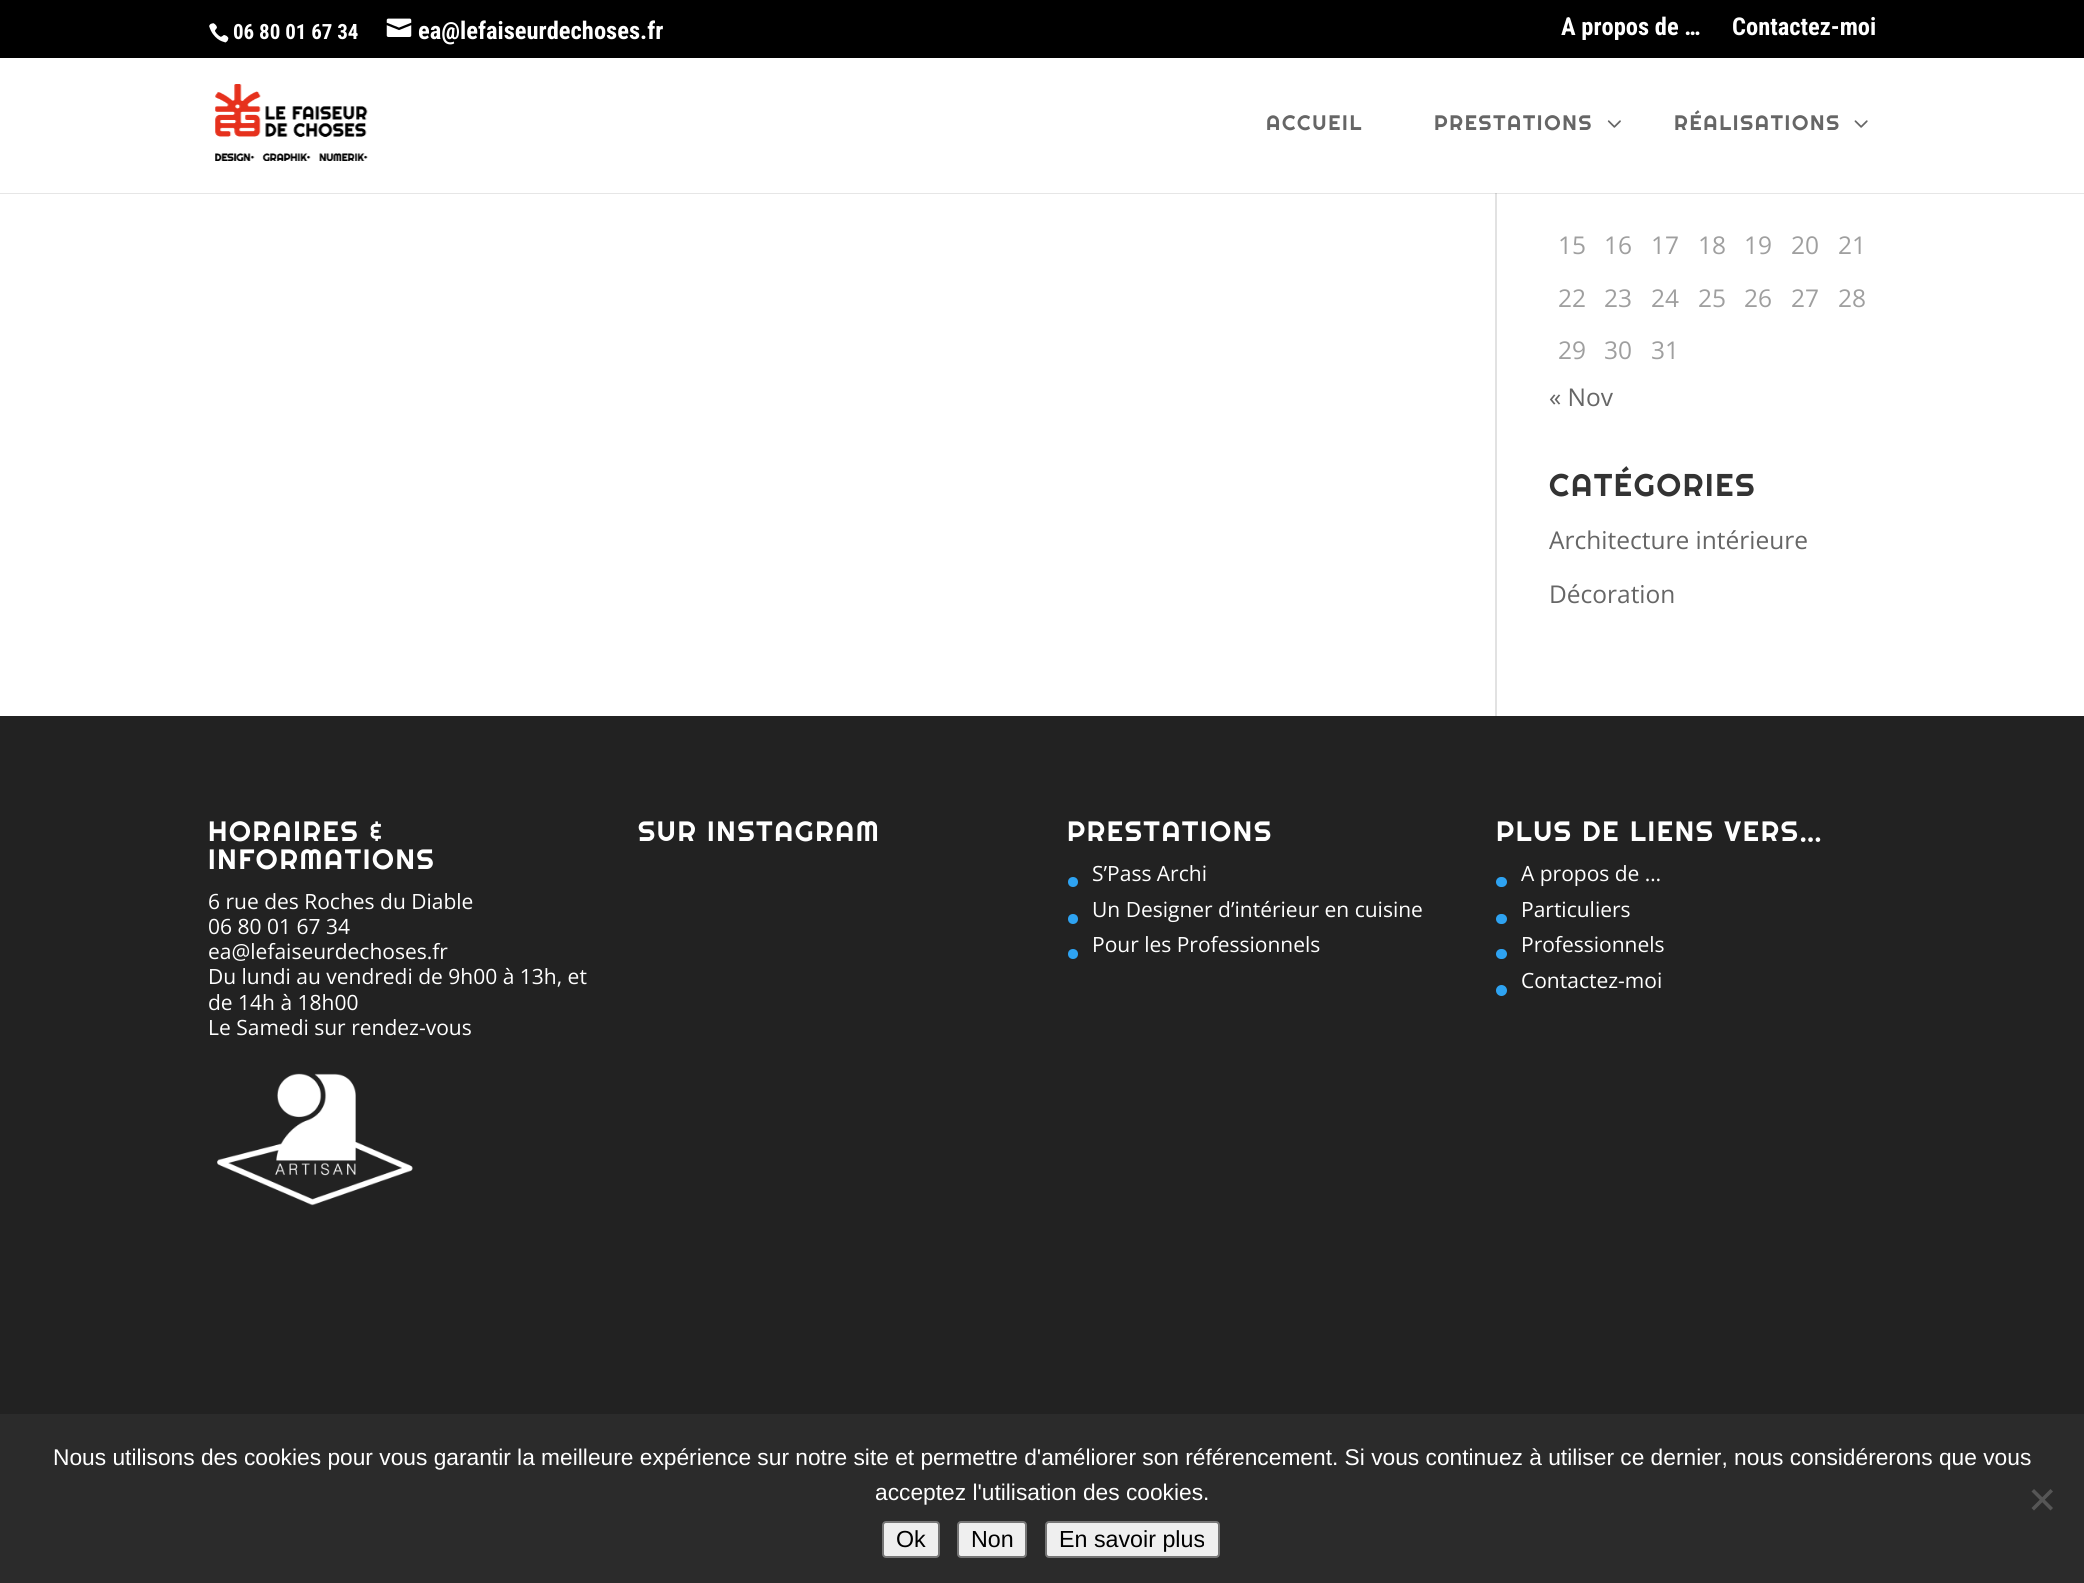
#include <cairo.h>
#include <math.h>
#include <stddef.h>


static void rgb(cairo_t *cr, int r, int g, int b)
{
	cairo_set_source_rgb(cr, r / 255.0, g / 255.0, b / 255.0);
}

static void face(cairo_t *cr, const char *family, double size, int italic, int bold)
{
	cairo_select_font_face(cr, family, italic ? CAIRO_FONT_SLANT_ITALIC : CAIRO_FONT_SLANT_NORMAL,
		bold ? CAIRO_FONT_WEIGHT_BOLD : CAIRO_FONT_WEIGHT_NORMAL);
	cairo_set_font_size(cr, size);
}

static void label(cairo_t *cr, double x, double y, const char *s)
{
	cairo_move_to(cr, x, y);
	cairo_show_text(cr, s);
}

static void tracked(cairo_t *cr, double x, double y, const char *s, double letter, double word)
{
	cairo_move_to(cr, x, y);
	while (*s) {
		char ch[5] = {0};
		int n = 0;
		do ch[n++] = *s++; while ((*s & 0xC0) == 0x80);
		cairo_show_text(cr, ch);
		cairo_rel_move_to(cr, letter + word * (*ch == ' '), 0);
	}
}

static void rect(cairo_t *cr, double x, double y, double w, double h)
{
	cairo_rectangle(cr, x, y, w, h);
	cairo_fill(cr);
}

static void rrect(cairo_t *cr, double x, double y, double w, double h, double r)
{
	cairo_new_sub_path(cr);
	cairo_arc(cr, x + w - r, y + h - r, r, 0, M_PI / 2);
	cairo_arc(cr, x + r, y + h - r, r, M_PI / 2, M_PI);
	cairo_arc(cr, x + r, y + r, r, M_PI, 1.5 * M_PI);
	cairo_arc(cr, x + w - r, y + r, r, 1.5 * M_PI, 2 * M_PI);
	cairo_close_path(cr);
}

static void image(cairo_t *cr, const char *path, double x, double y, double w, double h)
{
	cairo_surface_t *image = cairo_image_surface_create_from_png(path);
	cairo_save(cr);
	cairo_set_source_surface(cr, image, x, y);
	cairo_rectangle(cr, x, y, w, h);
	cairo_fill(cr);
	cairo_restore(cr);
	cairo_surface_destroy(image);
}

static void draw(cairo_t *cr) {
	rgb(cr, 255, 255, 255);
	cairo_paint(cr);
	rgb(cr, 0, 0, 0);
	rect(cr, 0, 0, 2084, 58);
	image(cr, "image0.png", 209, 23, 20, 20);
	face(cr, "Roboto Condensed", 21, 0, 1);
	rgb(cr, 255, 255, 255);
	label(cr, 233, 39, "06 80 01 67 34");
	image(cr, "image1.png", 386, 18, 26, 19);
	face(cr, "Roboto Condensed", 24.5, 0, 1);
	label(cr, 418, 39, "ea@lefaiseurdechoses.fr");
	label(cr, 1561, 35, "A propos de …");
	label(cr, 1732, 35, "Contactez-moi");
	rgb(cr, 226, 226, 226);
	rect(cr, 1495, 193, 2, 523);
	cairo_set_source_rgba(cr, 0, 0, 0, 0.1);
	rect(cr, 0, 193, 2084, 1);
	image(cr, "image2.png", 215, 84, 153, 77);
	face(cr, "Righteous", 21, 0, 0);
	rgb(cr, 102, 102, 102);
	tracked(cr, 1266, 130, "ACCUEIL", 1.75, 0);
	tracked(cr, 1434, 130, "PRESTATIONS", 1.75, 0);
	image(cr, "image3.png", 1607, 120, 14, 8);
	tracked(cr, 1674, 130, "RÉALISATIONS", 1.75, 0);
	image(cr, "image4.png", 1854, 120, 14, 8);
	face(cr, "Open Sans", 24.5, 0, 0);
	rgb(cr, 159, 159, 159);
	label(cr, 1558, 254, "15");
	label(cr, 1604, 254, "16");
	label(cr, 1651, 254, "17");
	label(cr, 1698, 254, "18");
	label(cr, 1744, 254, "19");
	label(cr, 1791, 254, "20");
	label(cr, 1838, 254, "21");
	label(cr, 1558, 307, "22");
	label(cr, 1604, 307, "23");
	label(cr, 1651, 307, "24");
	label(cr, 1698, 307, "25");
	label(cr, 1744, 307, "26");
	label(cr, 1791, 307, "27");
	label(cr, 1838, 307, "28");
	label(cr, 1558, 359, "29");
	label(cr, 1604, 359, "30");
	label(cr, 1651, 359, "31");
	rgb(cr, 102, 102, 102);
	label(cr, 1549, 406, "« Nov");
	face(cr, "Righteous", 31.5, 0, 0);
	rgb(cr, 51, 51, 51);
	tracked(cr, 1549, 496, "CATÉGORIES", 1.75, 0);
	face(cr, "Open Sans", 24.5, 0, 0);
	rgb(cr, 102, 102, 102);
	label(cr, 1549, 549, "Architecture intérieure");
	label(cr, 1549, 603, "Décoration");
	rgb(cr, 34, 34, 34);
	rect(cr, 0, 716, 2084, 698);
	face(cr, "Righteous", 28, 0, 0);
	rgb(cr, 255, 255, 255);
	tracked(cr, 208, 841, "HORAIRES &", 1.75, 0);
	tracked(cr, 208, 869, "INFORMATIONS", 1.75, 0);
	face(cr, "Open Sans", 21, 0, 0);
	label(cr, 208, 909, "6 rue des Roches du Diable");
	label(cr, 208, 934, "06 80 01 67 34");
	label(cr, 208, 959, "ea@lefaiseurdechoses.fr");
	label(cr, 208, 984, "Du lundi au vendredi de 9h00 à 13h, et");
	label(cr, 208, 1010, "de 14h à 18h00");
	label(cr, 208, 1035, "Le Samedi sur rendez-vous");
	image(cr, "image5.png", 217, 1073, 196, 133);
	face(cr, "Righteous", 28, 0, 0);
	tracked(cr, 638, 841, "SUR INSTAGRAM", 1.75, 0);
	tracked(cr, 1067, 841, "PRESTATIONS", 1.75, 0);
	rgb(cr, 46, 163, 242);
	cairo_new_path(cr);
	cairo_arc(cr, 1073, 882, 5, 0, 2 * M_PI);
	cairo_fill(cr);
	face(cr, "Open Sans", 21, 0, 0);
	rgb(cr, 255, 255, 255);
	label(cr, 1092, 881, "S’Pass Archi");
	rgb(cr, 46, 163, 242);
	cairo_new_path(cr);
	cairo_arc(cr, 1073, 919, 5, 0, 2 * M_PI);
	cairo_fill(cr);
	rgb(cr, 255, 255, 255);
	label(cr, 1092, 917, "Un Designer d’intérieur en cuisine");
	label(cr, 1092, 952, "Pour les Professionnels");
	rgb(cr, 46, 163, 242);
	cairo_new_path(cr);
	cairo_arc(cr, 1073, 954, 5, 0, 2 * M_PI);
	cairo_fill(cr);
	face(cr, "Righteous", 28, 0, 0);
	rgb(cr, 255, 255, 255);
	tracked(cr, 1496, 841, "PLUS DE LIENS VERS…", 1.75, 0);
	rgb(cr, 46, 163, 242);
	rrect(cr, 1496, 877, 11, 10, 5);
	cairo_fill(cr);
	face(cr, "Open Sans", 21, 0, 0);
	rgb(cr, 255, 255, 255);
	label(cr, 1521, 881, "A propos de …");
	label(cr, 1521, 917, "Particuliers");
	rgb(cr, 46, 163, 242);
	rrect(cr, 1496, 914, 11, 10, 5);
	cairo_fill(cr);
	rgb(cr, 255, 255, 255);
	label(cr, 1521, 952, "Professionnels");
	rgb(cr, 46, 163, 242);
	rrect(cr, 1496, 949, 11, 10, 5);
	cairo_fill(cr);
	rgb(cr, 255, 255, 255);
	label(cr, 1521, 988, "Contactez-moi");
	rgb(cr, 46, 163, 242);
	cairo_new_path(cr);
	cairo_arc(cr, 1501.5, 990.5, 5.5, 0, 2 * M_PI);
	cairo_fill(cr);
	rgb(cr, 43, 43, 43);
	rect(cr, 0, 1414, 2084, 169);
	face(cr, "Liberation Sans", 22.75, 0, 0);
	rgb(cr, 255, 255, 255);
	label(cr, 53, 1465, "Nous utilisons des cookies pour vous garantir la meilleure expérience sur notre site et permettre d'améliorer son référencement. Si vous continuez à utiliser ce dernier, nous considérerons que vous");
	label(cr, 875, 1500, "acceptez l'utilisation des cookies.");
	rgb(cr, 86, 86, 86);
	cairo_new_path(cr);
	cairo_move_to(cr, 2050.5, 1489);
	cairo_line_to(cr, 2053, 1491.5);
	cairo_line_to(cr, 2034, 1510.5);
	cairo_line_to(cr, 2031.5, 1508);
	cairo_close_path(cr);
	cairo_fill(cr);
	cairo_new_path(cr);
	cairo_move_to(cr, 2031.5, 1491.5);
	cairo_line_to(cr, 2034, 1489);
	cairo_line_to(cr, 2053, 1508);
	cairo_line_to(cr, 2050.5, 1510.5);
	cairo_close_path(cr);
	cairo_fill(cr);
	rgb(cr, 239, 239, 239);
	rrect(cr, 883, 1522, 56, 35, 3);
	cairo_fill_preserve(cr);
	rgb(cr, 118, 118, 118);
	cairo_stroke(cr);
	face(cr, "Liberation Sans", 23.25, 0, 0);
	rgb(cr, 0, 0, 0);
	label(cr, 896, 1547, "Ok");
	rgb(cr, 239, 239, 239);
	rrect(cr, 958, 1522, 68, 35, 3);
	cairo_fill_preserve(cr);
	rgb(cr, 118, 118, 118);
	cairo_stroke(cr);
	rgb(cr, 0, 0, 0);
	label(cr, 971, 1547, "Non");
	rgb(cr, 239, 239, 239);
	rrect(cr, 1046, 1522, 173, 35, 3);
	cairo_fill_preserve(cr);
	rgb(cr, 118, 118, 118);
	cairo_stroke(cr);
	rgb(cr, 0, 0, 0);
	label(cr, 1059, 1547, "En savoir plus");
}

int main(void) {
	cairo_surface_t *surface = cairo_image_surface_create(CAIRO_FORMAT_RGB24, 2084, 1583);
	cairo_t *cr = cairo_create(surface);
	cairo_font_options_t *options = cairo_font_options_create();
	cairo_font_options_set_hint_metrics(options, CAIRO_HINT_METRICS_OFF);
	cairo_font_options_set_hint_style(options, CAIRO_HINT_STYLE_NONE);
	cairo_set_font_options(cr, options);
	cairo_set_miter_limit(cr, 4);
	draw(cr);
	cairo_surface_write_to_png(surface, "render.png");
	cairo_font_options_destroy(options);
	cairo_destroy(cr);
	cairo_surface_destroy(surface);
	return 0;
}
